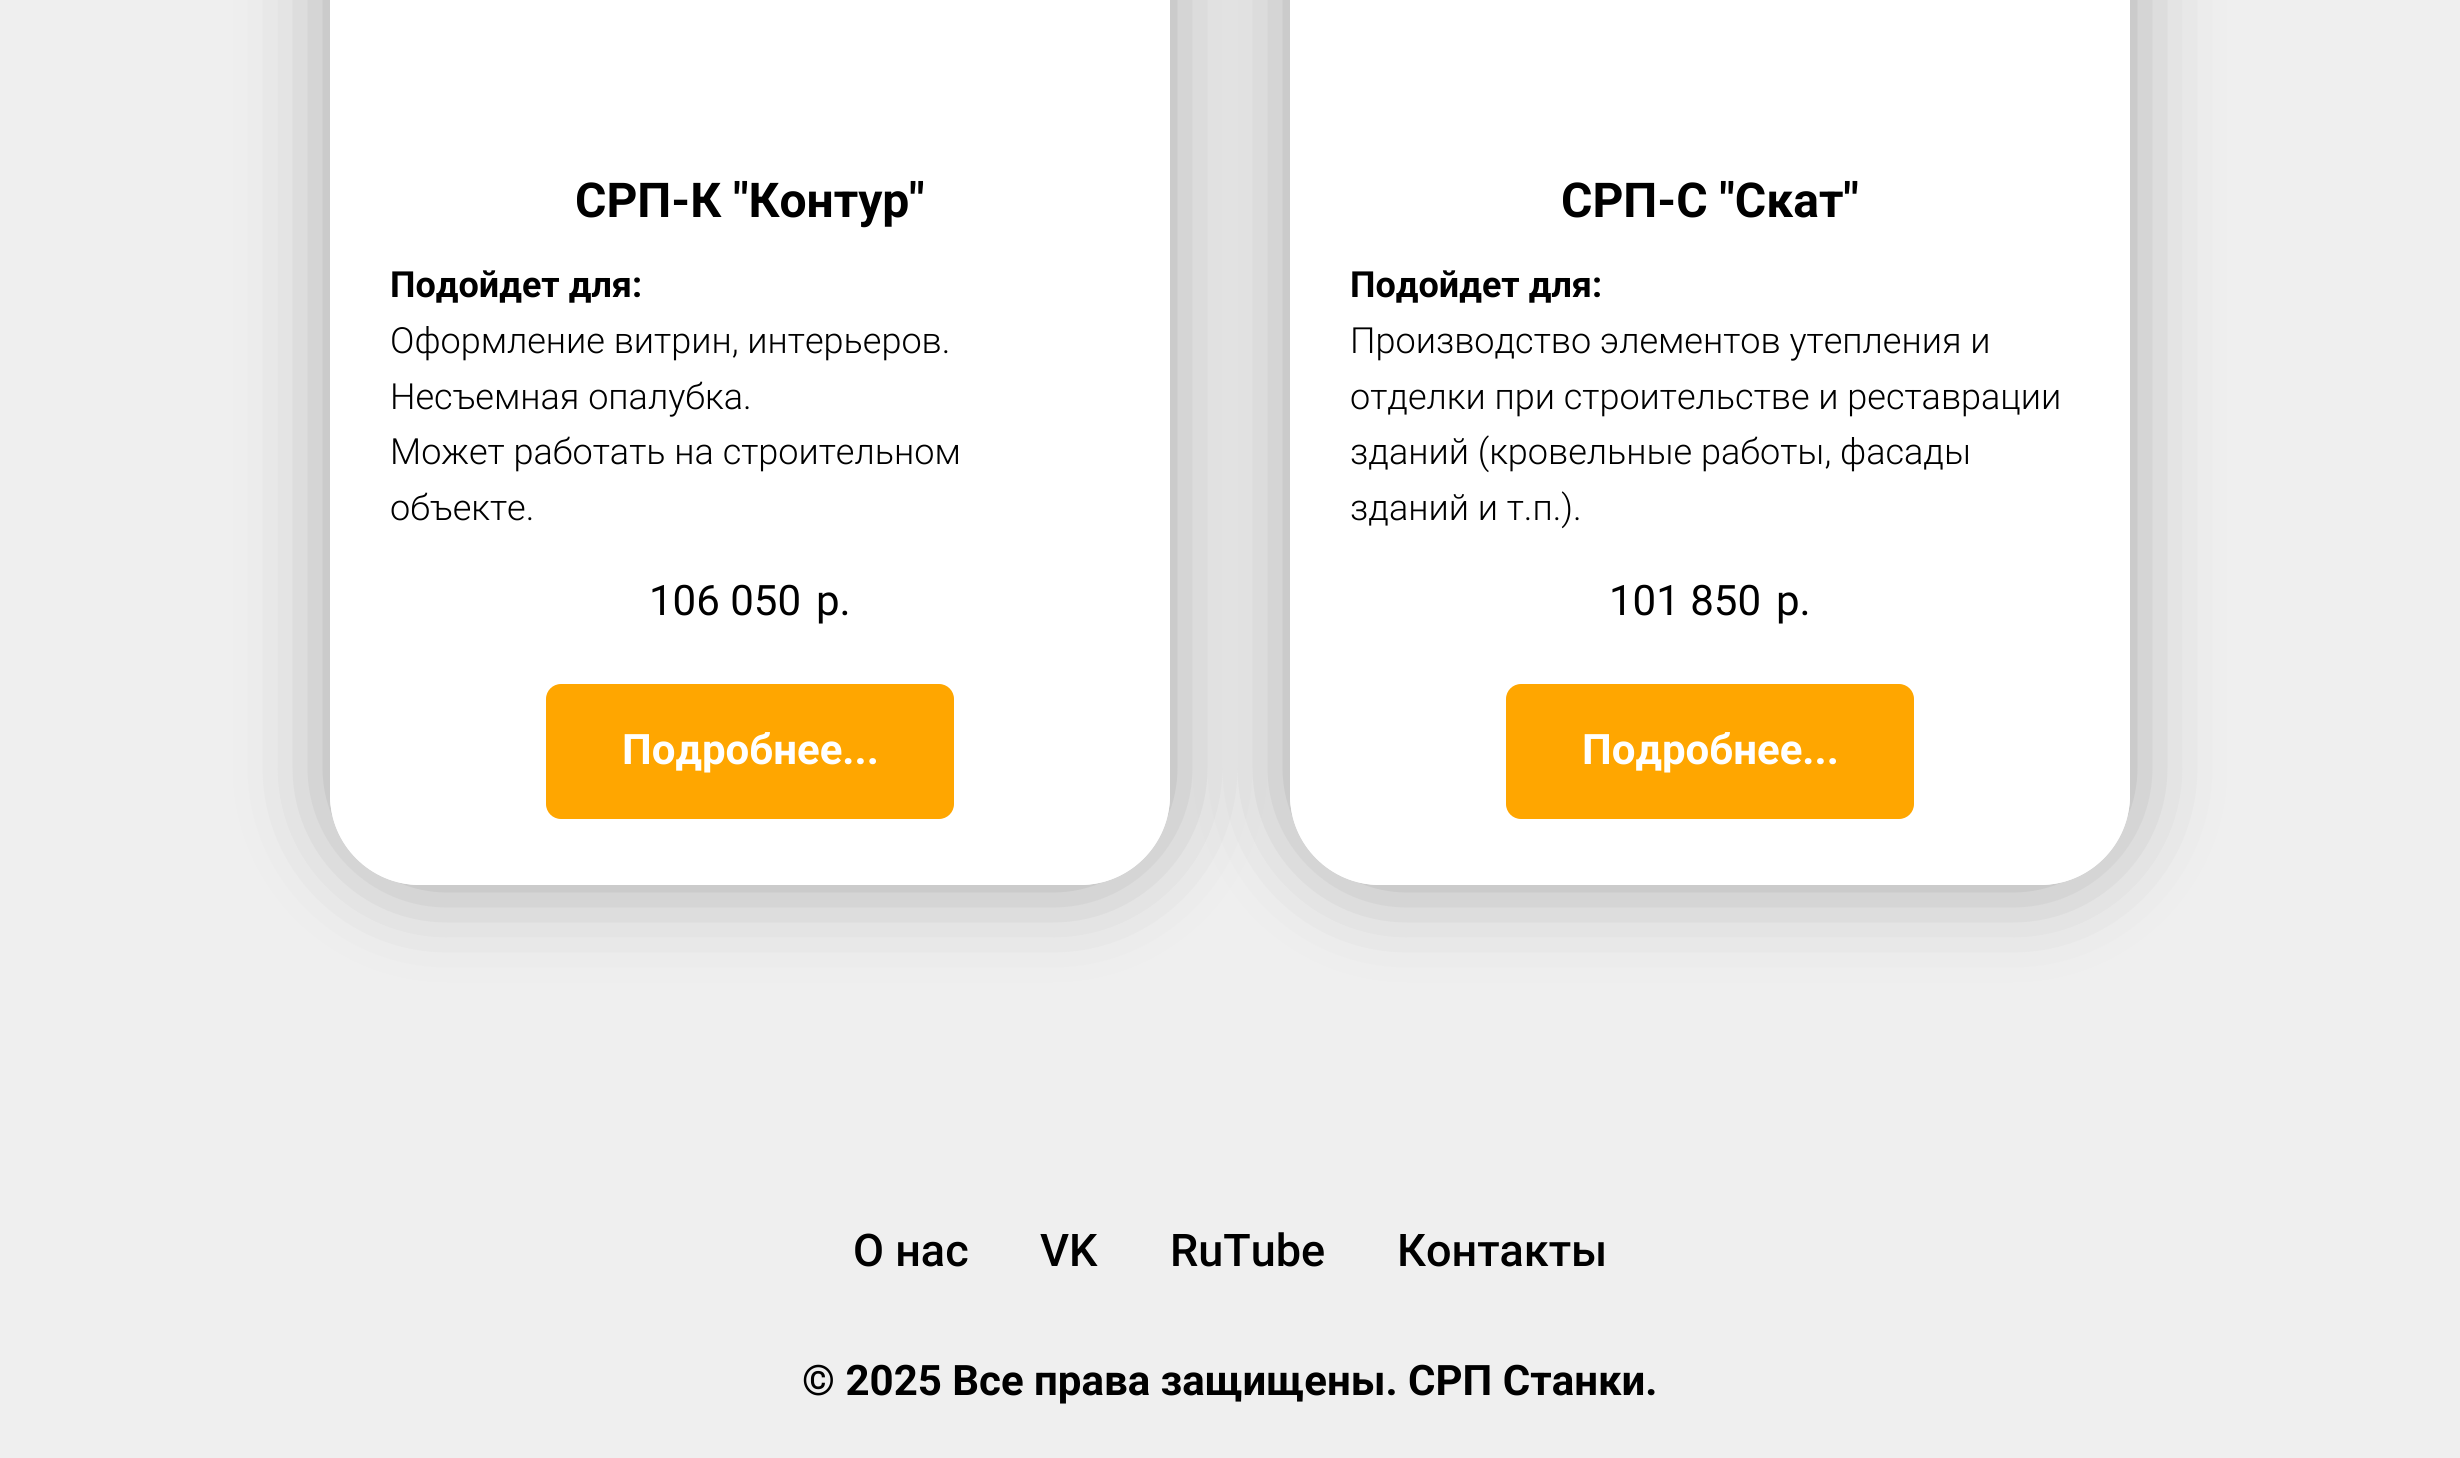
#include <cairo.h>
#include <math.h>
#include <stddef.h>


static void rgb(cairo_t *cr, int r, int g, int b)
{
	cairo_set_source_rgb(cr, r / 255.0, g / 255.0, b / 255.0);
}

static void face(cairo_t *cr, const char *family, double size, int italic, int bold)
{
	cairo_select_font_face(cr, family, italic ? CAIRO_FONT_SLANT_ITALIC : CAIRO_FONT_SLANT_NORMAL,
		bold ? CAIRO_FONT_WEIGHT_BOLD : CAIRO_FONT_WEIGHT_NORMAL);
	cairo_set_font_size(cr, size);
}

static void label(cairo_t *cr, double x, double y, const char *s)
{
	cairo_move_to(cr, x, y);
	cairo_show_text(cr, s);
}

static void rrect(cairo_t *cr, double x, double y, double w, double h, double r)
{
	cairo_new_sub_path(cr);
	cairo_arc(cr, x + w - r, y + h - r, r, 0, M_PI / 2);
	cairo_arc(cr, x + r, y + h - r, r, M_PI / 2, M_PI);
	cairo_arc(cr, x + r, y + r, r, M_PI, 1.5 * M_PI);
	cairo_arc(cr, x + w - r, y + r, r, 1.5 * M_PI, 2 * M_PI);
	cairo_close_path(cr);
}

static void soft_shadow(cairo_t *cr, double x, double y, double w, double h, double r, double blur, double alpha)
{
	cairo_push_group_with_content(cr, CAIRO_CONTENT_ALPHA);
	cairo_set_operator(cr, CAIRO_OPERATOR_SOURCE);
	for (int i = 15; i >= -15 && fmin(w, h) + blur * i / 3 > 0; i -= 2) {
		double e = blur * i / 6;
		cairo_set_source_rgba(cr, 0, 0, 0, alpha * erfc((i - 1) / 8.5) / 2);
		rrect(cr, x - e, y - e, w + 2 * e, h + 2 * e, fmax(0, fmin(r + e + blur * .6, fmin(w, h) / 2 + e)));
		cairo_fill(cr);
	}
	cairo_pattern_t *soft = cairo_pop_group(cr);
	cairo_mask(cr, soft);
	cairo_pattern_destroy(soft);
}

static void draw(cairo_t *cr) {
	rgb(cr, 239, 239, 239);
	cairo_paint(cr);
	rgb(cr, 0, 0, 0);
	soft_shadow(cr, 330, -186, 840, 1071, 90, 45, 0.3);
	rgb(cr, 255, 255, 255);
	rrect(cr, 330, -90, 840, 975, 90);
	cairo_fill(cr);
	cairo_new_path(cr);
	cairo_move_to(cr, 330, 114);
	cairo_line_to(cr, 1170, 114);
	cairo_line_to(cr, 1170, 795);
	cairo_curve_to(cr, 1170, 844.5, 1129.5, 885, 1080, 885);
	cairo_line_to(cr, 420, 885);
	cairo_curve_to(cr, 370.5, 885, 330, 844.5, 330, 795);
	cairo_close_path(cr);
	cairo_fill(cr);
	face(cr, "Roboto", 48, 0, 1);
	rgb(cr, 0, 0, 0);
	label(cr, 575, 217, "СРП-К \"Контур\"");
	face(cr, "Roboto", 36, 0, 1);
	label(cr, 390, 297, "Подойдет для:");
	face(cr, "Roboto Light", 36, 0, 0);
	label(cr, 390, 353, "Оформление витрин, интерьеров.");
	label(cr, 390, 409, "Несъемная опалубка.");
	label(cr, 390, 464, "Может работать на строительном");
	label(cr, 390, 520, "объекте.");
	face(cr, "Roboto", 42, 0, 0);
	label(cr, 649, 615, "106 050");
	label(cr, 816, 615, "р.");
	rgb(cr, 255, 166, 0);
	rrect(cr, 546, 684, 408, 135, 15);
	cairo_fill(cr);
	face(cr, "Roboto", 42, 0, 1);
	rgb(cr, 255, 255, 255);
	label(cr, 622, 764, "Подробнее...");
	rgb(cr, 0, 0, 0);
	soft_shadow(cr, 1290, -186, 840, 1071, 90, 45, 0.3);
	rgb(cr, 255, 255, 255);
	rrect(cr, 1290, -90, 840, 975, 90);
	cairo_fill(cr);
	cairo_new_path(cr);
	cairo_move_to(cr, 1290, 114);
	cairo_line_to(cr, 2130, 114);
	cairo_line_to(cr, 2130, 795);
	cairo_curve_to(cr, 2130, 844.5, 2089.5, 885, 2040, 885);
	cairo_line_to(cr, 1380, 885);
	cairo_curve_to(cr, 1330.5, 885, 1290, 844.5, 1290, 795);
	cairo_close_path(cr);
	cairo_fill(cr);
	face(cr, "Roboto", 48, 0, 1);
	rgb(cr, 0, 0, 0);
	label(cr, 1561, 217, "СРП-С \"Скат\"");
	face(cr, "Roboto", 36, 0, 1);
	label(cr, 1350, 297, "Подойдет для:");
	face(cr, "Roboto Light", 36, 0, 0);
	label(cr, 1350, 353, "Производство элементов утепления и");
	label(cr, 1350, 409, "отделки при строительстве и реставрации");
	label(cr, 1350, 464, "зданий (кровельные работы, фасады");
	label(cr, 1350, 520, "зданий и т.п.).");
	face(cr, "Roboto", 42, 0, 0);
	label(cr, 1609, 615, "101 850");
	label(cr, 1776, 615, "р.");
	rgb(cr, 255, 166, 0);
	rrect(cr, 1506, 684, 408, 135, 15);
	cairo_fill(cr);
	face(cr, "Roboto", 42, 0, 1);
	rgb(cr, 255, 255, 255);
	label(cr, 1582, 764, "Подробнее...");
	face(cr, "Roboto Medium", 45, 0, 0);
	rgb(cr, 0, 0, 0);
	label(cr, 853, 1266, "О нас");
	label(cr, 1040, 1266, "VK");
	label(cr, 1170, 1266, "RuTube");
	label(cr, 1397, 1266, "Контакты");
	face(cr, "Roboto", 42, 0, 1);
	label(cr, 802, 1395, "© 2025 Все права защищены. СРП Станки.");
}

int main(void) {
	cairo_surface_t *surface = cairo_image_surface_create(CAIRO_FORMAT_RGB24, 2460, 1458);
	cairo_t *cr = cairo_create(surface);
	cairo_font_options_t *options = cairo_font_options_create();
	cairo_font_options_set_hint_metrics(options, CAIRO_HINT_METRICS_OFF);
	cairo_font_options_set_hint_style(options, CAIRO_HINT_STYLE_NONE);
	cairo_set_font_options(cr, options);
	cairo_set_miter_limit(cr, 4);
	draw(cr);
	cairo_surface_write_to_png(surface, "render.png");
	cairo_font_options_destroy(options);
	cairo_destroy(cr);
	cairo_surface_destroy(surface);
	return 0;
}
